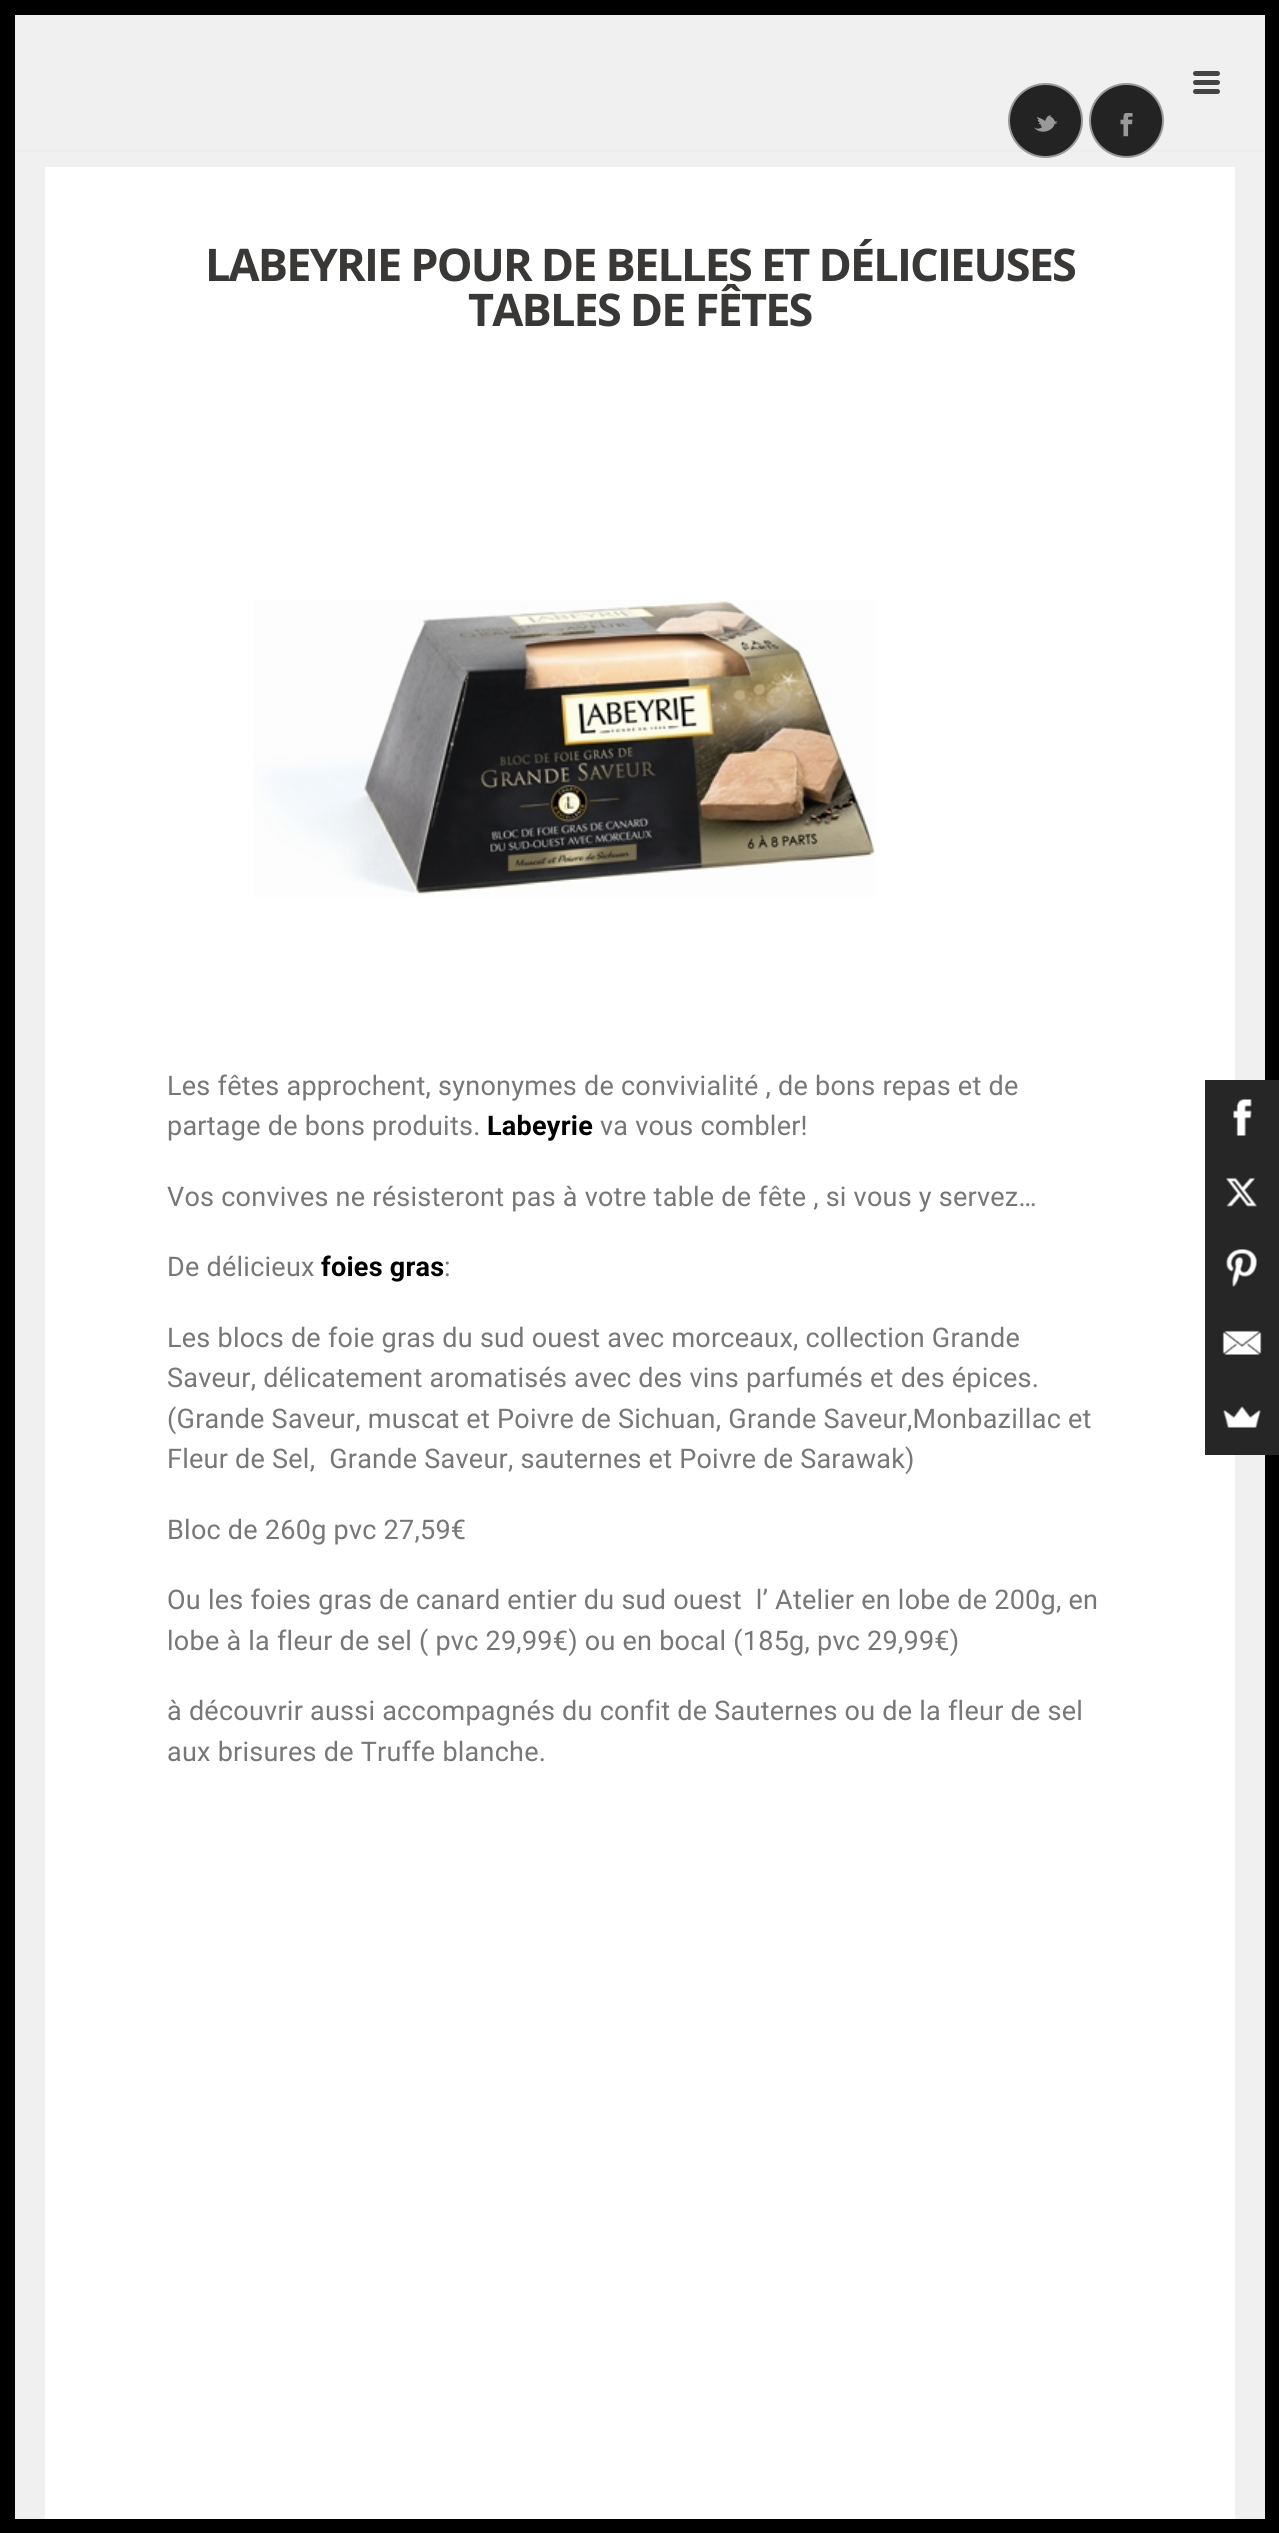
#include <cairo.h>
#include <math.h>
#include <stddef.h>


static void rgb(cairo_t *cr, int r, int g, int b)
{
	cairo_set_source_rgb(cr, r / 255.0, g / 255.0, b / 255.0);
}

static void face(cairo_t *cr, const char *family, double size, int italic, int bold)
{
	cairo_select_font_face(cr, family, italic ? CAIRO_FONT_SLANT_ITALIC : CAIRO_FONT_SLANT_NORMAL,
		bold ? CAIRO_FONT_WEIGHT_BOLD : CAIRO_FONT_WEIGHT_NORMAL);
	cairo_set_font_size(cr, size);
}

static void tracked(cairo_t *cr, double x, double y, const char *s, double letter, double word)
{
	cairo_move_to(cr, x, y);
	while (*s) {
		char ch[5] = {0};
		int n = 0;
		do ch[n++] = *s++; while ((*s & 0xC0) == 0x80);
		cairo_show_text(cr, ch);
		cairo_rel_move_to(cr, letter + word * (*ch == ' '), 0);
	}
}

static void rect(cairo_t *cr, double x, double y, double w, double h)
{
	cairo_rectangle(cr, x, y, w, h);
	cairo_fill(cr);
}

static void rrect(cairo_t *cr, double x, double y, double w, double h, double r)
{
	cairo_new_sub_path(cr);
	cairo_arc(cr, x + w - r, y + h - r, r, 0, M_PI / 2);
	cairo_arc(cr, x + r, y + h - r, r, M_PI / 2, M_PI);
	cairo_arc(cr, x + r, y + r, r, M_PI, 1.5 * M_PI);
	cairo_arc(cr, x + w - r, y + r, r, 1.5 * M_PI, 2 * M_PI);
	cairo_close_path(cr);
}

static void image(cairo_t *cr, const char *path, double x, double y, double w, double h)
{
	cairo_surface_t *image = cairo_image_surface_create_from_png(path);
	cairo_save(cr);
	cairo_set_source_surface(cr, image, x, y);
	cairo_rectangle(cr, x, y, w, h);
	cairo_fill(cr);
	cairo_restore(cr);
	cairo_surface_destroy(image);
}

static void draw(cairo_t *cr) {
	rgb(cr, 240, 240, 240);
	cairo_paint(cr);
	rgb(cr, 0, 0, 0);
	rect(cr, 0, 0, 15, 2519);
	rect(cr, 15, 0, 1250, 15);
	rect(cr, 1265, 0, 14, 2519);
	rgb(cr, 237, 237, 237);
	rect(cr, 15, 150, 1250, 2);
	rgb(cr, 35, 35, 35);
	cairo_arc(cr, 1045.5, 120.5, 36.5, 0, 2 * M_PI);
	cairo_fill_preserve(cr);
	rgb(cr, 153, 153, 153);
	cairo_stroke(cr);
	image(cr, "image0.png", 1034, 115, 24, 17);
	rgb(cr, 35, 35, 35);
	cairo_arc(cr, 1126.5, 120.5, 36.5, 0, 2 * M_PI);
	cairo_fill_preserve(cr);
	rgb(cr, 153, 153, 153);
	cairo_stroke(cr);
	image(cr, "image1.png", 1120, 113, 13, 24);
	rgb(cr, 68, 68, 68);
	rrect(cr, 1193, 71, 27, 5, 2.5);
	cairo_fill(cr);
	rrect(cr, 1193, 80, 27, 5, 2.5);
	cairo_fill(cr);
	rrect(cr, 1193, 89, 27, 5, 2.5);
	cairo_fill(cr);
	rgb(cr, 255, 255, 255);
	rect(cr, 45, 167, 1190, 2352);
	face(cr, "Open Sans", 45, 0, 1);
	rgb(cr, 57, 56, 54);
	tracked(cr, 205, 281, "LABEYRIE POUR DE BELLES ET DÉLICIEUSES", -1.8, 0);
	tracked(cr, 468, 326, "TABLES DE FÊTES", -1.8, 0);
	image(cr, "image2.png", 253, 600, 623, 297);
	face(cr, "Roboto", 27, 0, 0);
	rgb(cr, 119, 119, 119);
	tracked(cr, 167, 1095, "Les fêtes approchent, synonymes de convivialité , de bons repas et de", 0.25, 0);
	tracked(cr, 167, 1135, "partage de bons produits.", 0.25, 0);
	face(cr, "Roboto", 27, 0, 1);
	rgb(cr, 0, 0, 0);
	tracked(cr, 487, 1135, "Labeyrie", 0.25, 0);
	face(cr, "Roboto", 27, 0, 0);
	rgb(cr, 119, 119, 119);
	tracked(cr, 600, 1135, "va vous combler!", 0.25, 0);
	tracked(cr, 167, 1206, "Vos convives ne résisteront pas à votre table de fête , si vous y servez…", 0.25, 0);
	tracked(cr, 167, 1276, "De délicieux", 0.25, 0);
	face(cr, "Roboto", 27, 0, 1);
	rgb(cr, 0, 0, 0);
	tracked(cr, 321, 1276, "foies gras", 0.25, 0);
	face(cr, "Roboto", 27, 0, 0);
	rgb(cr, 119, 119, 119);
	tracked(cr, 444, 1276, ":", 0.25, 0);
	tracked(cr, 167, 1347, "Les blocs de foie gras du sud ouest avec morceaux, collection Grande", 0.25, 0);
	tracked(cr, 167, 1387, "Saveur, délicatement aromatisés avec des vins parfumés et des épices.", 0.25, 0);
	tracked(cr, 167, 1428, "(Grande Saveur, muscat et Poivre de Sichuan, Grande Saveur,Monbazillac et", 0.25, 0);
	tracked(cr, 167, 1468, "Fleur de Sel,  Grande Saveur, sauternes et Poivre de Sarawak)", 0.25, 0);
	tracked(cr, 167, 1539, "Bloc de 260g pvc 27,59€", 0.25, 0);
	tracked(cr, 167, 1609, "Ou les foies gras de canard entier du sud ouest  l’ Atelier en lobe de 200g, en", 0.25, 0);
	tracked(cr, 167, 1650, "lobe à la fleur de sel ( pvc 29,99€) ou en bocal (185g, pvc 29,99€)", 0.25, 0);
	tracked(cr, 167, 1720, "à découvrir aussi accompagnés du confit de Sauternes ou de la fleur de sel", 0.25, 0);
	tracked(cr, 167, 1761, "aux brisures de Truffe blanche.", 0.25, 0);
	rgb(cr, 38, 38, 38);
	rect(cr, 1205, 1080, 74, 375);
	image(cr, "image3.png", 1233, 1099, 19, 37);
	image(cr, "image4.png", 1226, 1177, 31, 30);
	image(cr, "image5.png", 1226, 1249, 31, 38);
	image(cr, "image6.png", 1222, 1330, 40, 25);
	image(cr, "image7.png", 1223, 1406, 38, 22);
	rgb(cr, 0, 0, 0);
	rect(cr, 0, 2519, 1279, 14);
}

int main(void) {
	cairo_surface_t *surface = cairo_image_surface_create(CAIRO_FORMAT_RGB24, 1279, 2533);
	cairo_t *cr = cairo_create(surface);
	cairo_font_options_t *options = cairo_font_options_create();
	cairo_font_options_set_hint_metrics(options, CAIRO_HINT_METRICS_OFF);
	cairo_font_options_set_hint_style(options, CAIRO_HINT_STYLE_NONE);
	cairo_set_font_options(cr, options);
	cairo_set_miter_limit(cr, 4);
	draw(cr);
	cairo_surface_write_to_png(surface, "render.png");
	cairo_font_options_destroy(options);
	cairo_destroy(cr);
	cairo_surface_destroy(surface);
	return 0;
}
